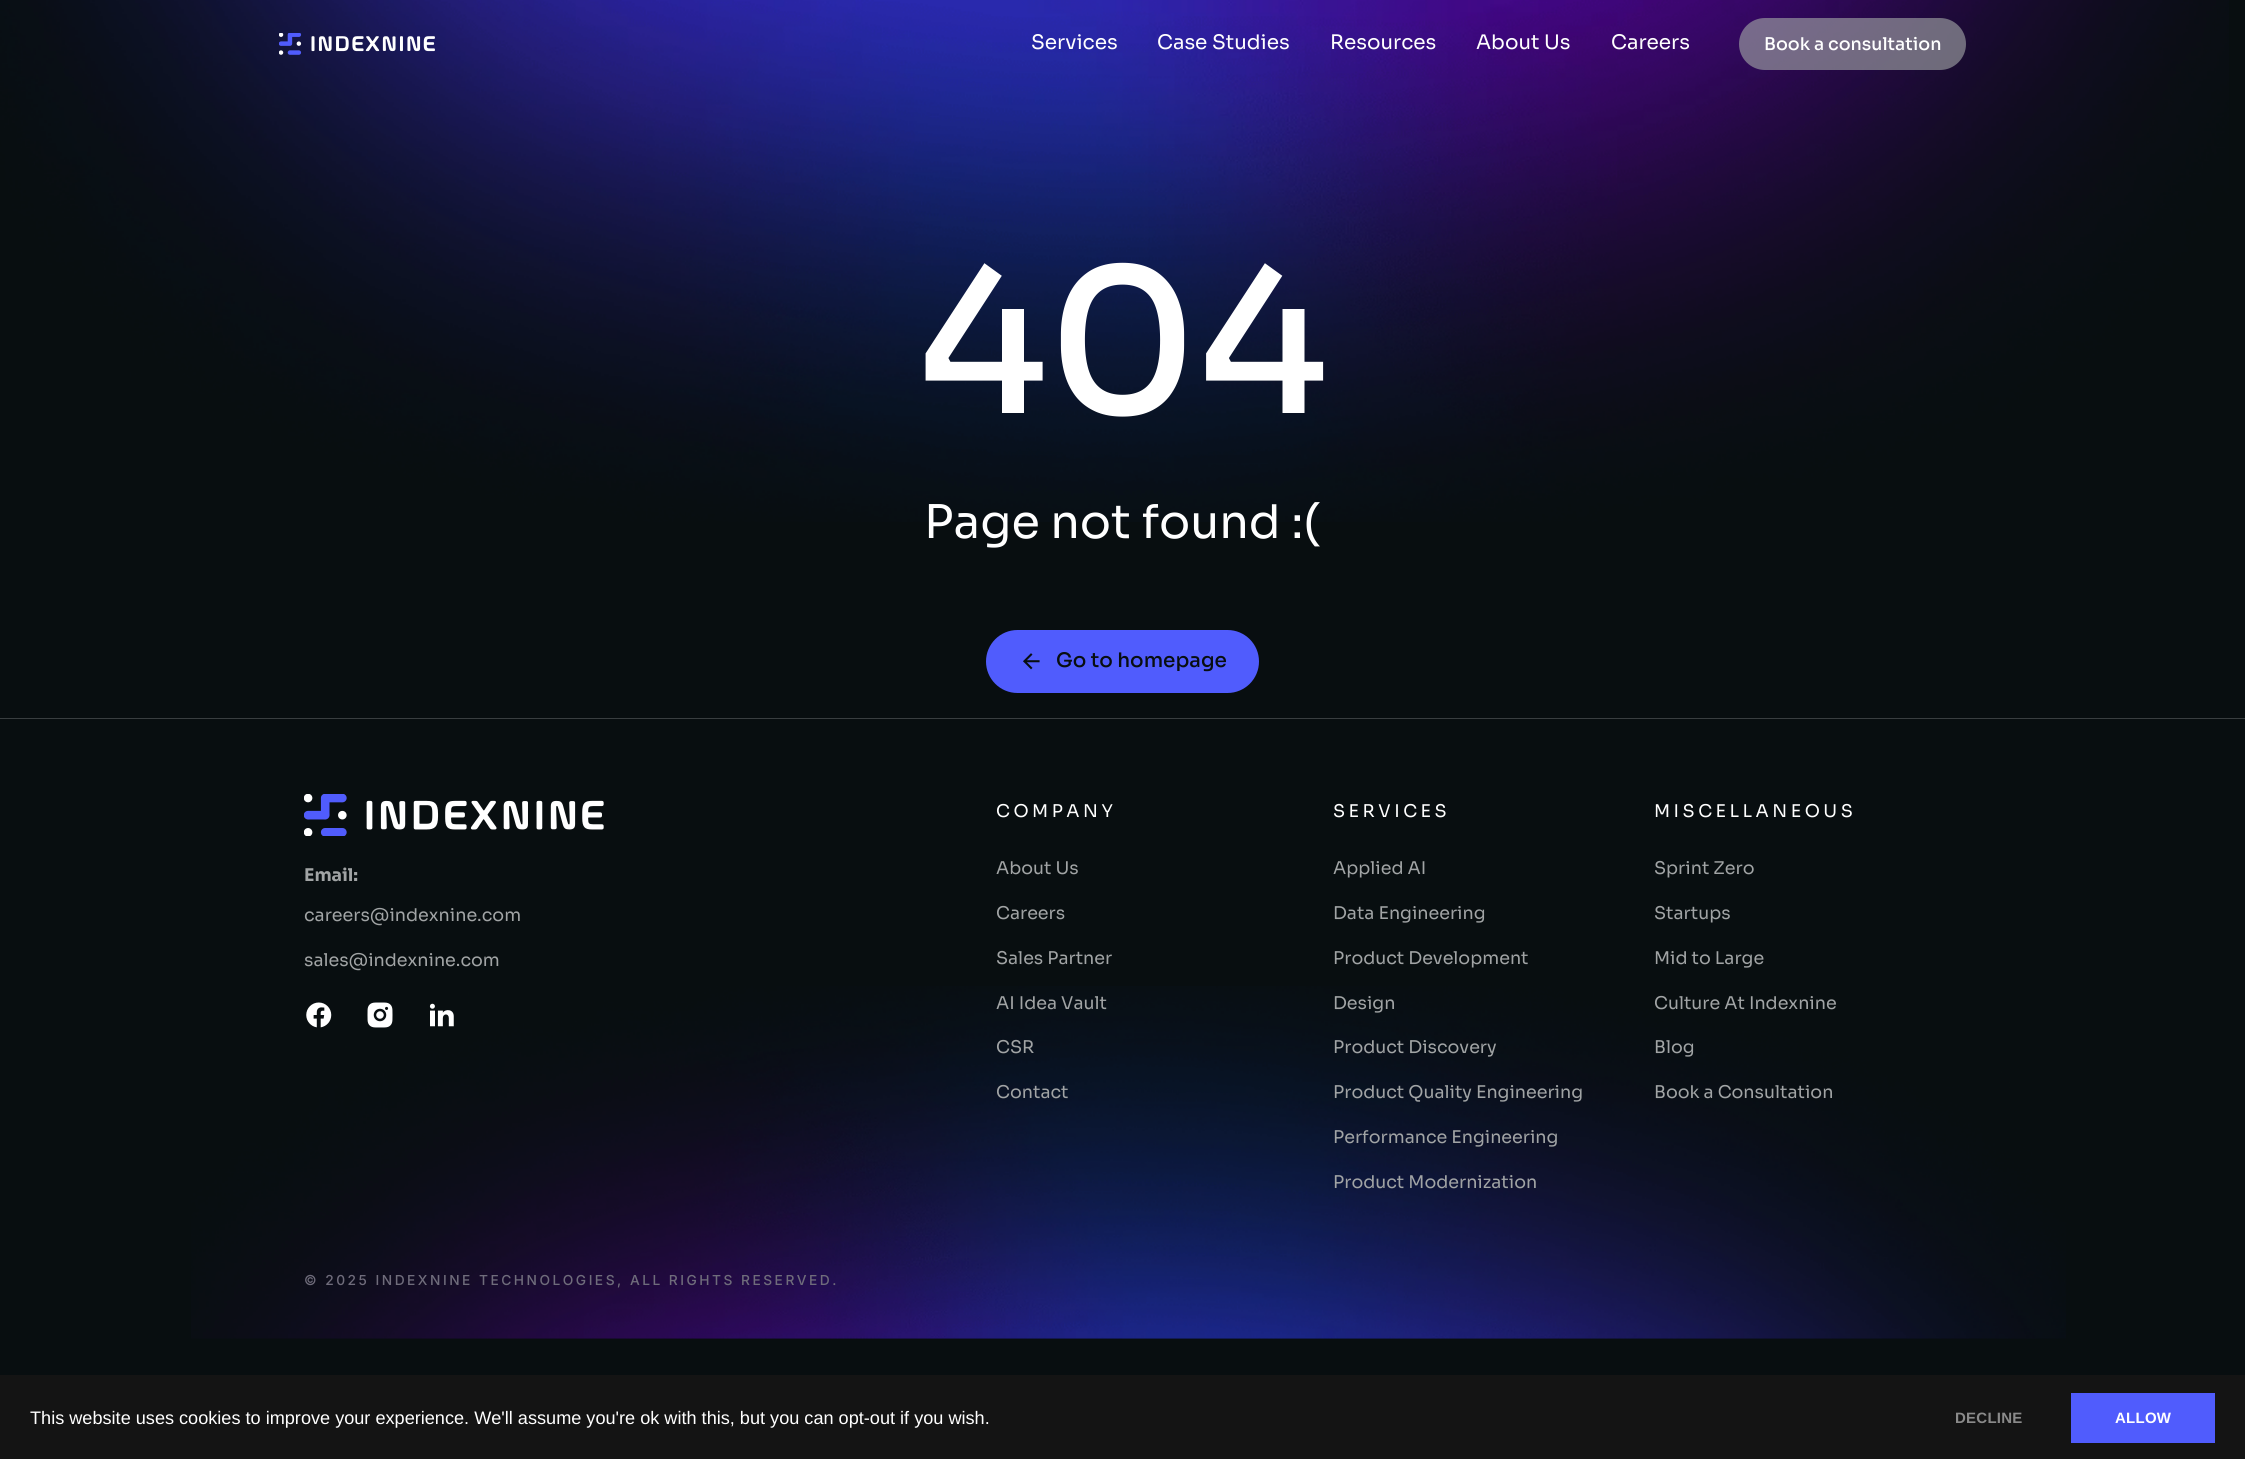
#include <cairo.h>
#include <math.h>
#include <stddef.h>


static void rgb(cairo_t *cr, int r, int g, int b)
{
	cairo_set_source_rgb(cr, r / 255.0, g / 255.0, b / 255.0);
}

static void face(cairo_t *cr, const char *family, double size, int italic, int bold)
{
	cairo_select_font_face(cr, family, italic ? CAIRO_FONT_SLANT_ITALIC : CAIRO_FONT_SLANT_NORMAL,
		bold ? CAIRO_FONT_WEIGHT_BOLD : CAIRO_FONT_WEIGHT_NORMAL);
	cairo_set_font_size(cr, size);
}

static void label(cairo_t *cr, double x, double y, const char *s)
{
	cairo_move_to(cr, x, y);
	cairo_show_text(cr, s);
}

static void tracked(cairo_t *cr, double x, double y, const char *s, double letter, double word)
{
	cairo_move_to(cr, x, y);
	while (*s) {
		char ch[5] = {0};
		int n = 0;
		do ch[n++] = *s++; while ((*s & 0xC0) == 0x80);
		cairo_show_text(cr, ch);
		cairo_rel_move_to(cr, letter + word * (*ch == ' '), 0);
	}
}

static void rect(cairo_t *cr, double x, double y, double w, double h)
{
	cairo_rectangle(cr, x, y, w, h);
	cairo_fill(cr);
}

static void rrect(cairo_t *cr, double x, double y, double w, double h, double r)
{
	cairo_new_sub_path(cr);
	cairo_arc(cr, x + w - r, y + h - r, r, 0, M_PI / 2);
	cairo_arc(cr, x + r, y + h - r, r, M_PI / 2, M_PI);
	cairo_arc(cr, x + r, y + r, r, M_PI, 1.5 * M_PI);
	cairo_arc(cr, x + w - r, y + r, r, 1.5 * M_PI, 2 * M_PI);
	cairo_close_path(cr);
}

static void image(cairo_t *cr, const char *path, double x, double y, double w, double h)
{
	cairo_surface_t *image = cairo_image_surface_create_from_png(path);
	cairo_save(cr);
	cairo_set_source_surface(cr, image, x, y);
	cairo_rectangle(cr, x, y, w, h);
	cairo_fill(cr);
	cairo_restore(cr);
	cairo_surface_destroy(image);
}

static void draw(cairo_t *cr) {
	rgb(cr, 8, 14, 16);
	cairo_paint(cr);
	image(cr, "image0.png", 0, 0, 2229, 522);
	image(cr, "image1.png", 279, 33, 156, 22);
	face(cr, "Sora", 20, 0, 0);
	rgb(cr, 255, 255, 255);
	label(cr, 1031, 49, "Services");
	label(cr, 1157, 49, "Case Studies");
	label(cr, 1330, 49, "Resources");
	label(cr, 1476, 49, "About Us");
	label(cr, 1611, 49, "Careers");
	cairo_set_source_rgba(cr, 0.631, 0.643, 0.647, 0.63);
	rrect(cr, 1739, 18, 227, 52, 26);
	cairo_fill(cr);
	face(cr, "Sora Medium", 17.5, 0, 0);
	rgb(cr, 255, 255, 255);
	label(cr, 1764, 50, "Book a consultation");
	face(cr, "Sora Medium", 200, 0, 0);
	label(cr, 917, 413, "404");
	face(cr, "Sora", 46.25, 0, 0);
	label(cr, 924, 538, "Page not found :(");
	rgb(cr, 80, 92, 253);
	rrect(cr, 986, 630, 273, 63, 31.5);
	cairo_fill(cr);
	image(cr, "image2.png", 1023, 653, 17, 17);
	face(cr, "Sora Medium", 20, 0, 0);
	rgb(cr, 8, 14, 16);
	label(cr, 1056, 667, "Go to homepage");
	image(cr, "image3.png", 191, 986, 1875, 353);
	rgb(cr, 57, 62, 64);
	rect(cr, 0, 718, 2245, 1);
	image(cr, "image4.png", 304, 794, 300, 42);
	face(cr, "Sora", 17.5, 0, 1);
	rgb(cr, 161, 164, 165);
	label(cr, 304, 881, "Email:");
	face(cr, "Sora", 17.5, 0, 0);
	label(cr, 304, 921, "careers@indexnine.com");
	label(cr, 304, 966, "sales@indexnine.com");
	image(cr, "image5.png", 306, 1002, 26, 26);
	image(cr, "image6.png", 367, 1002, 26, 26);
	image(cr, "image7.png", 429, 1003, 25, 24);
	rgb(cr, 255, 255, 255);
	tracked(cr, 996, 817, "COMPANY", 3.5, 0);
	rgb(cr, 161, 164, 165);
	label(cr, 996, 874, "About Us");
	label(cr, 996, 919, "Careers");
	label(cr, 996, 964, "Sales Partner");
	label(cr, 996, 1009, "AI Idea Vault");
	label(cr, 996, 1053, "CSR");
	label(cr, 996, 1098, "Contact");
	rgb(cr, 255, 255, 255);
	tracked(cr, 1333, 817, "SERVICES", 3.5, 0);
	rgb(cr, 161, 164, 165);
	label(cr, 1333, 874, "Applied AI");
	label(cr, 1333, 919, "Data Engineering");
	label(cr, 1333, 964, "Product Development");
	label(cr, 1333, 1009, "Design");
	label(cr, 1333, 1053, "Product Discovery");
	label(cr, 1333, 1098, "Product Quality Engineering");
	label(cr, 1333, 1143, "Performance Engineering");
	label(cr, 1333, 1188, "Product Modernization");
	rgb(cr, 255, 255, 255);
	tracked(cr, 1654, 817, "MISCELLANEOUS", 3.5, 0);
	rgb(cr, 161, 164, 165);
	label(cr, 1654, 874, "Sprint Zero");
	label(cr, 1654, 919, "Startups");
	label(cr, 1654, 964, "Mid to Large");
	label(cr, 1654, 1009, "Culture At Indexnine");
	label(cr, 1654, 1053, "Blog");
	label(cr, 1654, 1098, "Book a Consultation");
	face(cr, "Inter Medium", 13.75, 0, 0);
	rgb(cr, 111, 108, 123);
	tracked(cr, 304, 1285, "© 2025 INDEXNINE TECHNOLOGIES, ALL RIGHTS RESERVED.", 2.5, 0);
	rgb(cr, 20, 20, 20);
	rect(cr, 0, 1375, 2245, 84);
	face(cr, "Liberation Sans", 18.12, 0, 0);
	rgb(cr, 255, 255, 255);
	label(cr, 30, 1424, "This website uses cookies to improve your experience. We'll assume you're ok with this, but you can opt-out if you wish.");
	face(cr, "Liberation Sans", 15, 0, 1);
	rgb(cr, 138, 138, 138);
	tracked(cr, 1955, 1423, "DECLINE", 0.25, 0);
	rgb(cr, 80, 92, 253);
	rect(cr, 2071, 1393, 144, 50);
	rgb(cr, 255, 255, 255);
	tracked(cr, 2115, 1423, "ALLOW", 0.25, 0);
}

int main(void) {
	cairo_surface_t *surface = cairo_image_surface_create(CAIRO_FORMAT_RGB24, 2245, 1459);
	cairo_t *cr = cairo_create(surface);
	cairo_font_options_t *options = cairo_font_options_create();
	cairo_font_options_set_hint_metrics(options, CAIRO_HINT_METRICS_OFF);
	cairo_font_options_set_hint_style(options, CAIRO_HINT_STYLE_NONE);
	cairo_set_font_options(cr, options);
	cairo_set_miter_limit(cr, 4);
	draw(cr);
	cairo_surface_write_to_png(surface, "render.png");
	cairo_font_options_destroy(options);
	cairo_destroy(cr);
	cairo_surface_destroy(surface);
	return 0;
}
